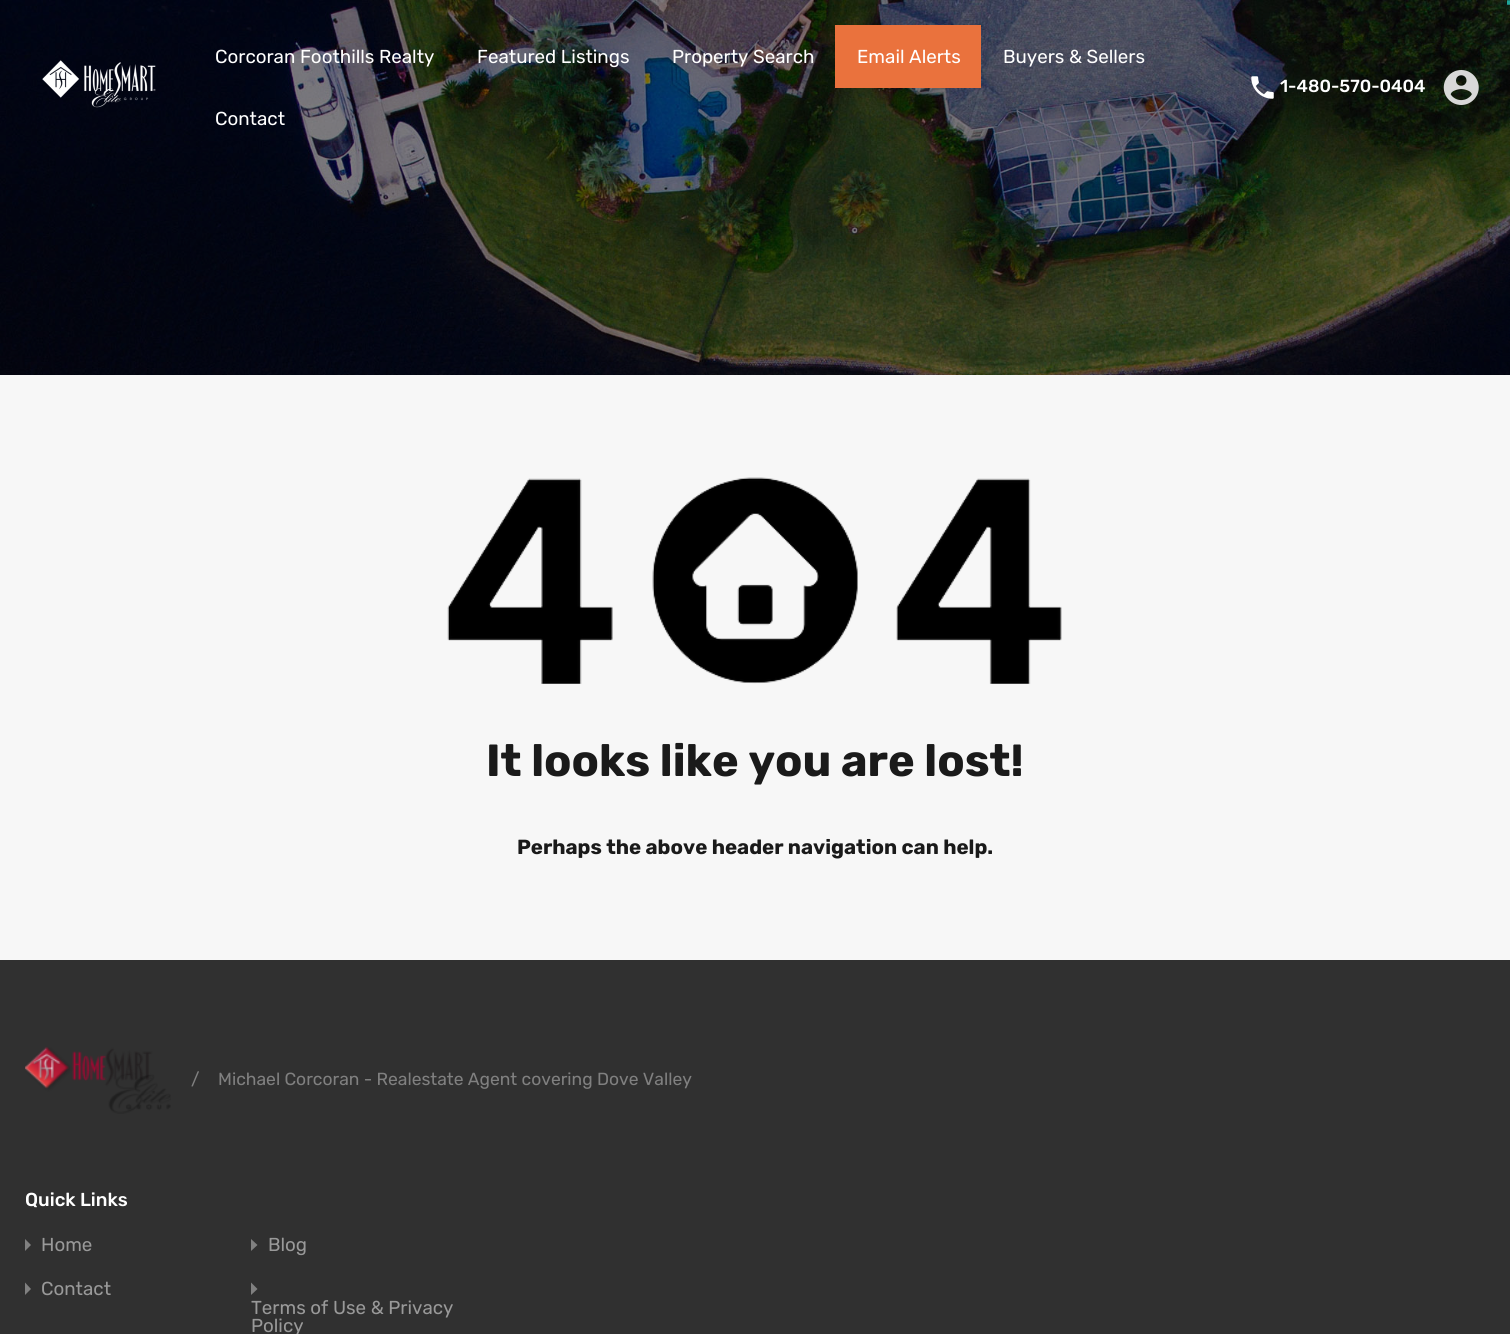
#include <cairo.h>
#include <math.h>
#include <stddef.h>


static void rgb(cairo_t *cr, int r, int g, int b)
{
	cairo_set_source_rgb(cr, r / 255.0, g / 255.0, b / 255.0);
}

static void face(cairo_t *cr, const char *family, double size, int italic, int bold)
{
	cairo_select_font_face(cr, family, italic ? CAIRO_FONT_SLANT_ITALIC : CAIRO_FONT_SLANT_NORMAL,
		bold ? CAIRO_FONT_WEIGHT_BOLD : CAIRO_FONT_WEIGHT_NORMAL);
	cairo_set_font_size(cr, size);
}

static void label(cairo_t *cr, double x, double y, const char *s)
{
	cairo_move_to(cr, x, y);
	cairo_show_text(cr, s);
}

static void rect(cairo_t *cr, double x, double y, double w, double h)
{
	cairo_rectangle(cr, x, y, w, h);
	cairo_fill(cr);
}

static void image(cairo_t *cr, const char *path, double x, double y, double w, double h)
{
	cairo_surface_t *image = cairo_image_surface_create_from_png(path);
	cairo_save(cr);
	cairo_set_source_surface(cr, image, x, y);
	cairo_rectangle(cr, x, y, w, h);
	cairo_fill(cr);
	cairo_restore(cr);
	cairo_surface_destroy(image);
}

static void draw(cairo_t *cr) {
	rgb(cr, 247, 247, 247);
	cairo_paint(cr);
	image(cr, "image0.png", 0, 0, 1510, 375);
	cairo_new_path(cr);
	cairo_move_to(cr, 1507, 2.5);
	cairo_line_to(cr, 1510, 2.5);
	rgb(cr, 30, 166, 154);
	cairo_set_line_width(cr, 4.5);
	cairo_stroke(cr);
	image(cr, "image1.png", 42, 60, 114, 48);
	face(cr, "Rubik", 18.75, 0, 0);
	rgb(cr, 255, 255, 255);
	label(cr, 215, 63, "Corcoran Foothills Realty");
	label(cr, 477, 63, "Featured Listings");
	label(cr, 672, 63, "Property Search");
	rgb(cr, 234, 114, 61);
	rect(cr, 835, 25, 146, 63);
	rgb(cr, 255, 255, 255);
	label(cr, 857, 63, "Email Alerts");
	label(cr, 1003, 63, "Buyers & Sellers");
	label(cr, 215, 125, "Contact");
	image(cr, "image2.png", 1251, 76, 23, 23);
	face(cr, "Rubik Medium", 17.5, 0, 0);
	label(cr, 1280, 92, "1-480-570-0404");
	image(cr, "image3.png", 1443, 70, 36, 35);
	image(cr, "image4.png", 447, 477, 615, 207);
	face(cr, "Rubik", 45, 0, 1);
	rgb(cr, 26, 26, 26);
	label(cr, 486, 776, "It looks like you are lost!");
	face(cr, "Rubik", 20.45, 0, 1);
	label(cr, 517, 854, "Perhaps the above header navigation can help.");
	rgb(cr, 48, 48, 48);
	rect(cr, 0, 960, 1510, 374);
	image(cr, "image5.png", 25, 1047, 146, 67);
	face(cr, "Rubik", 17.5, 0, 0);
	rgb(cr, 128, 128, 128);
	label(cr, 191, 1085, "/");
	label(cr, 218, 1085, "Michael Corcoran - Realestate Agent covering Dove Valley");
	face(cr, "Rubik Medium", 18.75, 0, 0);
	rgb(cr, 255, 255, 255);
	label(cr, 25, 1206, "Quick Links");
	rgb(cr, 128, 128, 128);
	cairo_new_path(cr);
	cairo_move_to(cr, 25, 1251);
	cairo_line_to(cr, 25, 1239);
	cairo_line_to(cr, 31, 1245);
	cairo_close_path(cr);
	cairo_fill(cr);
	face(cr, "Rubik", 18.75, 0, 0);
	rgb(cr, 153, 153, 153);
	label(cr, 41, 1251, "Home");
	rgb(cr, 128, 128, 128);
	cairo_new_path(cr);
	cairo_move_to(cr, 251, 1251);
	cairo_line_to(cr, 251, 1239);
	cairo_line_to(cr, 257.5, 1245);
	cairo_close_path(cr);
	cairo_fill(cr);
	rgb(cr, 153, 153, 153);
	label(cr, 268, 1251, "Blog");
	rgb(cr, 128, 128, 128);
	cairo_new_path(cr);
	cairo_move_to(cr, 25, 1295);
	cairo_line_to(cr, 25, 1282.5);
	cairo_line_to(cr, 31, 1289);
	cairo_close_path(cr);
	cairo_fill(cr);
	rgb(cr, 153, 153, 153);
	label(cr, 41, 1295, "Contact");
	rgb(cr, 128, 128, 128);
	cairo_new_path(cr);
	cairo_move_to(cr, 251, 1295);
	cairo_line_to(cr, 251, 1282.5);
	cairo_line_to(cr, 257.5, 1289);
	cairo_close_path(cr);
	cairo_fill(cr);
	rgb(cr, 153, 153, 153);
	label(cr, 251, 1314, "Terms of Use & Privacy");
	label(cr, 251, 1332, "Policy");
}

int main(void) {
	cairo_surface_t *surface = cairo_image_surface_create(CAIRO_FORMAT_RGB24, 1510, 1334);
	cairo_t *cr = cairo_create(surface);
	cairo_font_options_t *options = cairo_font_options_create();
	cairo_font_options_set_hint_metrics(options, CAIRO_HINT_METRICS_OFF);
	cairo_font_options_set_hint_style(options, CAIRO_HINT_STYLE_NONE);
	cairo_set_font_options(cr, options);
	cairo_set_miter_limit(cr, 4);
	draw(cr);
	cairo_surface_write_to_png(surface, "render.png");
	cairo_font_options_destroy(options);
	cairo_destroy(cr);
	cairo_surface_destroy(surface);
	return 0;
}
